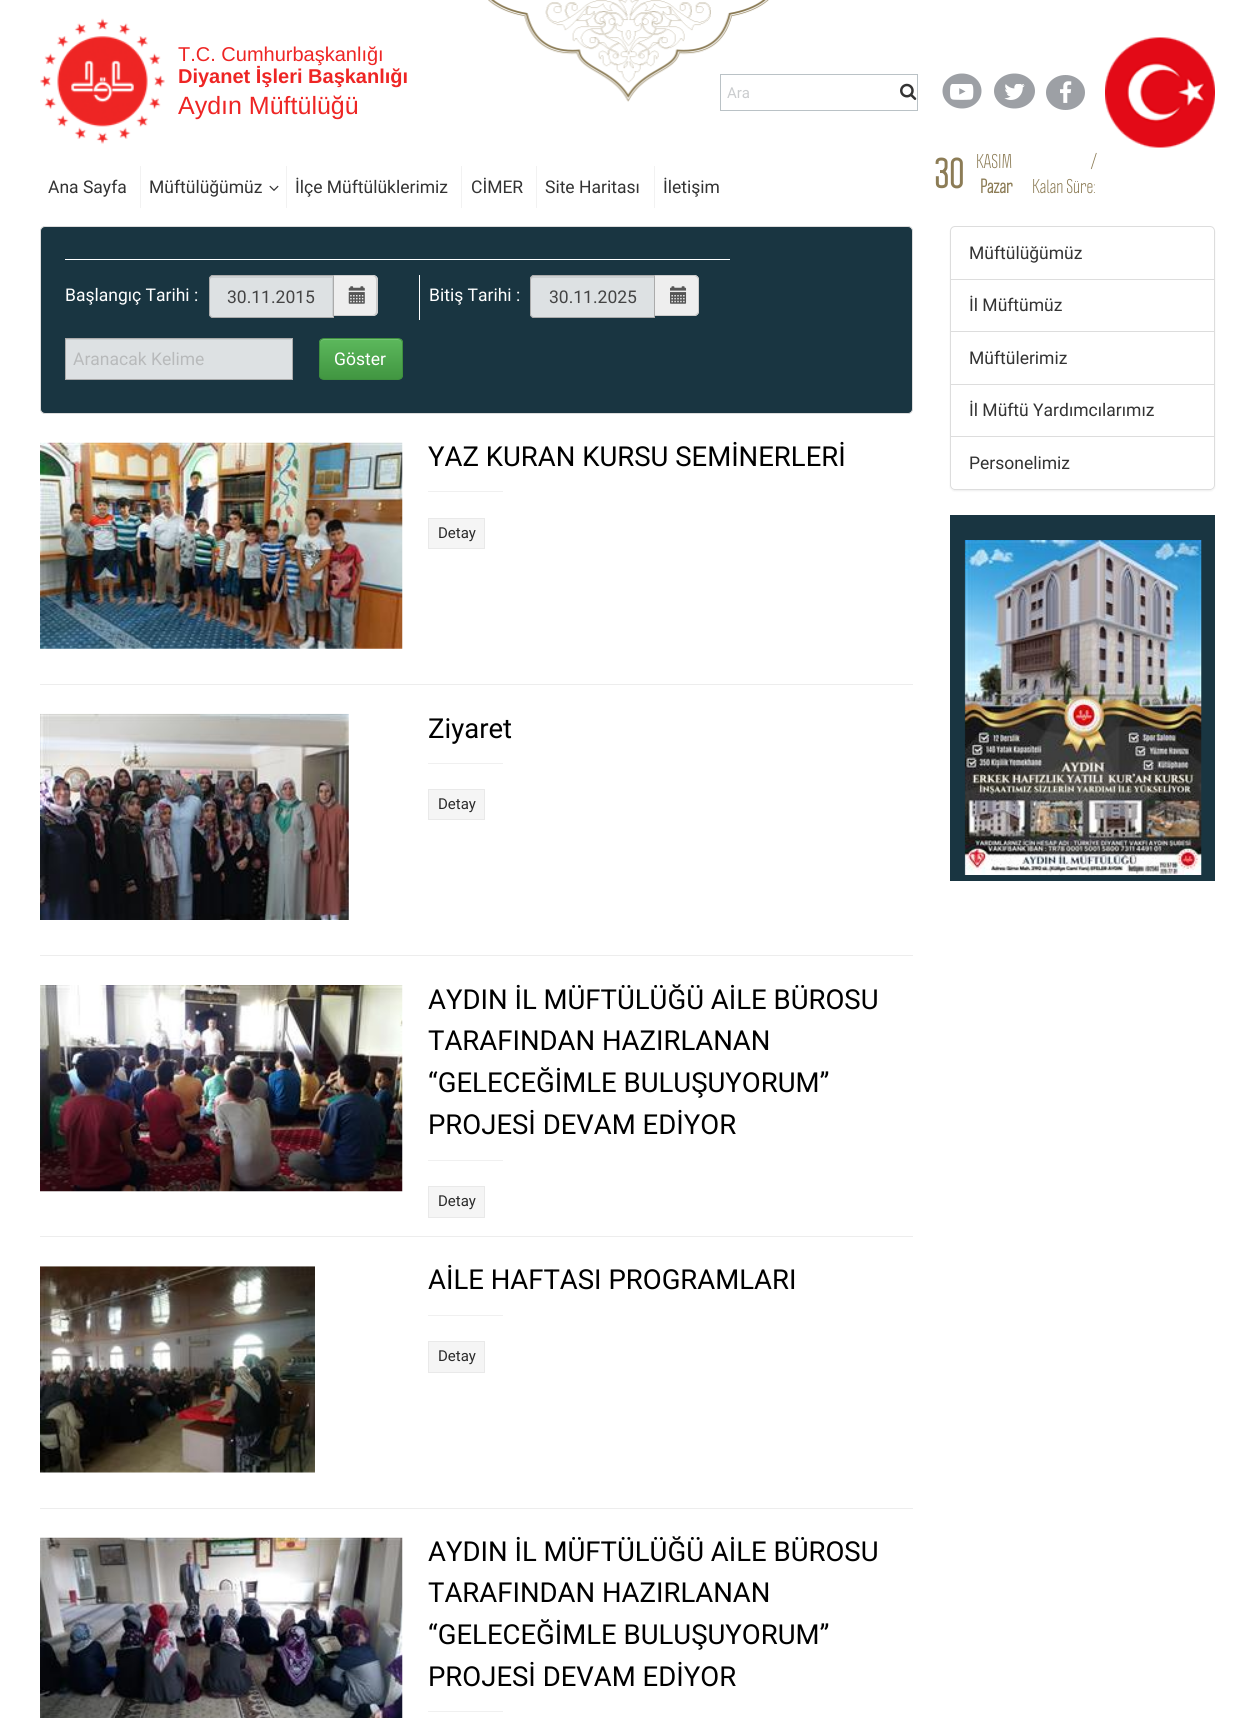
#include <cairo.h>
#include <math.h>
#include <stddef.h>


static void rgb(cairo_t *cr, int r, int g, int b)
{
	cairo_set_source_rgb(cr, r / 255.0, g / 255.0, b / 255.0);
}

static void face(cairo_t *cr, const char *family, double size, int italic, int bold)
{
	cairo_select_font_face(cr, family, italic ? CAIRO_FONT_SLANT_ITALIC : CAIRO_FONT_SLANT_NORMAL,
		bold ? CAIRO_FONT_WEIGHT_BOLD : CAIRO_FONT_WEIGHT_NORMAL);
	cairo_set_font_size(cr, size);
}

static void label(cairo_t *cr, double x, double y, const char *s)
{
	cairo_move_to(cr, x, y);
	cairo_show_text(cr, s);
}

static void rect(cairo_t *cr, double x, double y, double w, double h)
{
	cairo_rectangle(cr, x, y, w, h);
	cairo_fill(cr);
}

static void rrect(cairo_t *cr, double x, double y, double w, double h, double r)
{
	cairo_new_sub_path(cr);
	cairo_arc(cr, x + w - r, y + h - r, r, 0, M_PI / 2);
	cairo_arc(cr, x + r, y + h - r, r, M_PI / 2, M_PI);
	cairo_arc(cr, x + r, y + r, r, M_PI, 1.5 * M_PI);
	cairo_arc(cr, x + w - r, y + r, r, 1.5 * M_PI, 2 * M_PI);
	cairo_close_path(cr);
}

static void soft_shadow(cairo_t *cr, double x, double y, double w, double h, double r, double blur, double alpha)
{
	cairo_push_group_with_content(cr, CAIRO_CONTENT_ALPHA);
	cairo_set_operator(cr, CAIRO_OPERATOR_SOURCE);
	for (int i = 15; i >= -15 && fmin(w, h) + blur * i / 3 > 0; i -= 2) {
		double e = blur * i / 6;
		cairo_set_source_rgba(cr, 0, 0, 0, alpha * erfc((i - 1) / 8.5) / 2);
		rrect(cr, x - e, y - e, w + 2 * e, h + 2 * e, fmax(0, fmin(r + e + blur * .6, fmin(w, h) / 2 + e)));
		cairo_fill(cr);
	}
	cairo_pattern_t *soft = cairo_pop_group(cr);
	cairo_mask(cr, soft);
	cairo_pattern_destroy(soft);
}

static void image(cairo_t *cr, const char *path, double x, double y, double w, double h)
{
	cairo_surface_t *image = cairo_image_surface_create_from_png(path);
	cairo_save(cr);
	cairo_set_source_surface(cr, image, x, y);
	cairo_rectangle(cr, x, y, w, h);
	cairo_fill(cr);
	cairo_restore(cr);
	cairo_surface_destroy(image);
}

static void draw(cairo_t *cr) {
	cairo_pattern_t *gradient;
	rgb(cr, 255, 255, 255);
	cairo_paint(cr);
	image(cr, "image0.png", 488, 0, 281, 102);
	image(cr, "image1.png", 40, 18, 125, 126);
	face(cr, "Liberation Sans", 20, 0, 0);
	rgb(cr, 238, 37, 36);
	label(cr, 178, 61, "T.C. Cumhurbaşkanlığı");
	face(cr, "Liberation Sans", 20, 0, 1);
	label(cr, 178, 83, "Diyanet İşleri Başkanlığı");
	face(cr, "Liberation Sans", 25, 0, 0);
	label(cr, 178, 114, "Aydın Müftülüğü");
	cairo_rectangle(cr, 720.5, 74.5, 197, 36);
	rgb(cr, 186, 194, 198);
	cairo_set_line_width(cr, 1);
	cairo_stroke(cr);
	face(cr, "Roboto", 15, 0, 0);
	rgb(cr, 202, 204, 206);
	label(cr, 727, 98, "Ara");
	image(cr, "image2.png", 900, 83, 17, 17);
	rgb(cr, 157, 160, 165);
	cairo_new_path(cr);
	cairo_move_to(cr, 962, 73.5);
	cairo_curve_to(cr, 973, 73.5, 981.5, 81.5, 981.5, 91);
	cairo_curve_to(cr, 981.5, 100.5, 973, 108.5, 962, 108.5);
	cairo_curve_to(cr, 951, 108.5, 942.5, 100.5, 942.5, 91);
	cairo_curve_to(cr, 942.5, 81.5, 951, 73.5, 962, 73.5);
	cairo_close_path(cr);
	cairo_fill(cr);
	image(cr, "image3.png", 950, 84, 24, 16);
	cairo_new_path(cr);
	cairo_move_to(cr, 1014.5, 73.5);
	cairo_curve_to(cr, 1026, 73.5, 1035, 81.5, 1035, 91);
	cairo_curve_to(cr, 1035, 100.5, 1026, 108.5, 1014.5, 108.5);
	cairo_curve_to(cr, 1003, 108.5, 994, 100.5, 994, 91);
	cairo_curve_to(cr, 994, 81.5, 1003, 73.5, 1014.5, 73.5);
	cairo_close_path(cr);
	cairo_fill(cr);
	image(cr, "image4.png", 1004, 84, 21, 16);
	cairo_new_path(cr);
	cairo_move_to(cr, 1065.5, 75);
	cairo_curve_to(cr, 1076.5, 75, 1085, 83, 1085, 92.5);
	cairo_curve_to(cr, 1085, 102, 1076.5, 110, 1065.5, 110);
	cairo_curve_to(cr, 1054.5, 110, 1046, 102, 1046, 92.5);
	cairo_curve_to(cr, 1046, 83, 1054.5, 75, 1065.5, 75);
	cairo_close_path(cr);
	cairo_fill(cr);
	image(cr, "image5.png", 1060, 81, 12, 22);
	image(cr, "image6.png", 1105, 37, 110, 111);
	rgb(cr, 242, 242, 242);
	rect(cr, 140, 166, 1, 42);
	face(cr, "Roboto", 17.5, 0, 0);
	rgb(cr, 51, 51, 51);
	label(cr, 48, 193, "Ana Sayfa");
	rgb(cr, 242, 242, 242);
	rect(cr, 286, 166, 1, 42);
	rgb(cr, 51, 51, 51);
	label(cr, 149, 193, "Müftülüğümüz");
	image(cr, "image7.png", 269, 185, 10, 6);
	rgb(cr, 242, 242, 242);
	rect(cr, 461, 166, 1, 42);
	rgb(cr, 51, 51, 51);
	label(cr, 295, 193, "İlçe Müftülüklerimiz");
	rgb(cr, 242, 242, 242);
	rect(cr, 536, 166, 1, 42);
	rgb(cr, 51, 51, 51);
	label(cr, 471, 193, "CİMER");
	rgb(cr, 242, 242, 242);
	rect(cr, 654, 166, 1, 42);
	rgb(cr, 51, 51, 51);
	label(cr, 545, 193, "Site Haritası");
	label(cr, 663, 193, "İletişim");
	face(cr, "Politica", 38, 0, 1);
	rgb(cr, 140, 124, 86);
	label(cr, 934, 188, "30");
	face(cr, "Politica", 17.5, 0, 0);
	label(cr, 976, 168, "KASIM");
	face(cr, "Politica", 17.5, 0, 1);
	label(cr, 980, 193, "Pazar");
	face(cr, "Politica", 17.5, 0, 0);
	label(cr, 1091, 168, "/");
	label(cr, 1032, 193, "Kalan Süre:");
	rgb(cr, 25, 53, 65);
	rrect(cr, 40.5, 226.5, 872, 187, 4.5);
	cairo_fill_preserve(cr);
	rgb(cr, 220, 220, 220);
	cairo_stroke(cr);
	rgb(cr, 255, 255, 255);
	rect(cr, 65, 259, 665, 1);
	face(cr, "Roboto", 17.5, 0, 0);
	label(cr, 65, 301, "Başlangıç Tarihi :");
	rgb(cr, 221, 225, 227);
	cairo_new_path(cr);
	cairo_move_to(cr, 213, 275);
	cairo_line_to(cr, 334, 275);
	cairo_line_to(cr, 334, 318);
	cairo_line_to(cr, 213, 318);
	cairo_curve_to(cr, 211, 318, 209, 316, 209, 314);
	cairo_line_to(cr, 209, 279);
	cairo_curve_to(cr, 209, 277, 211, 275, 213, 275);
	cairo_close_path(cr);
	cairo_fill(cr);
	rgb(cr, 204, 208, 210);
	cairo_new_path(cr);
	cairo_move_to(cr, 212, 278);
	cairo_line_to(cr, 332, 278);
	cairo_line_to(cr, 332, 316);
	cairo_line_to(cr, 333, 316);
	cairo_line_to(cr, 333, 276);
	cairo_line_to(cr, 212, 276);
	cairo_curve_to(cr, 211, 276, 210, 277, 210, 278);
	cairo_line_to(cr, 210, 280);
	cairo_curve_to(cr, 210, 279, 211, 278, 212, 278);
	cairo_close_path(cr);
	cairo_fill(cr);
	cairo_new_path(cr);
	cairo_move_to(cr, 213, 275.5);
	cairo_line_to(cr, 333.5, 275.5);
	cairo_line_to(cr, 333.5, 317.5);
	cairo_line_to(cr, 213, 317.5);
	cairo_curve_to(cr, 211, 317.5, 209.5, 316, 209.5, 314);
	cairo_line_to(cr, 209.5, 279);
	cairo_curve_to(cr, 209.5, 277, 211, 275.5, 213, 275.5);
	cairo_close_path(cr);
	rgb(cr, 171, 171, 171);
	cairo_stroke(cr);
	rgb(cr, 68, 68, 68);
	label(cr, 227, 303, "30.11.2015");
	rgb(cr, 238, 238, 238);
	cairo_new_path(cr);
	cairo_move_to(cr, 334, 275);
	cairo_line_to(cr, 373, 275);
	cairo_curve_to(cr, 376, 275, 378, 277, 378, 280);
	cairo_line_to(cr, 378, 311);
	cairo_curve_to(cr, 378, 314, 376, 316, 373, 316);
	cairo_line_to(cr, 334, 316);
	cairo_close_path(cr);
	cairo_fill(cr);
	rgb(cr, 204, 204, 204);
	cairo_set_fill_rule(cr, CAIRO_FILL_RULE_EVEN_ODD);
	cairo_new_path(cr);
	cairo_move_to(cr, 334, 275);
	cairo_line_to(cr, 372, 275);
	cairo_curve_to(cr, 375, 275, 378, 277, 378, 280);
	cairo_line_to(cr, 378, 311);
	cairo_curve_to(cr, 378, 314, 375, 316, 372, 316);
	cairo_line_to(cr, 334, 316);
	cairo_close_path(cr);
	cairo_move_to(cr, 334, 276);
	cairo_line_to(cr, 372, 276);
	cairo_curve_to(cr, 375, 276, 376, 278, 376, 280);
	cairo_line_to(cr, 376, 311);
	cairo_curve_to(cr, 376, 313, 375, 315, 372, 315);
	cairo_line_to(cr, 334, 315);
	cairo_close_path(cr);
	cairo_fill(cr);
	image(cr, "image8.png", 348, 286, 17, 18);
	rgb(cr, 255, 255, 255);
	rect(cr, 419, 275, 1, 45);
	label(cr, 429, 301, "Bitiş Tarihi :");
	rgb(cr, 221, 225, 227);
	cairo_new_path(cr);
	cairo_move_to(cr, 534, 275);
	cairo_line_to(cr, 655, 275);
	cairo_line_to(cr, 655, 318);
	cairo_line_to(cr, 534, 318);
	cairo_curve_to(cr, 532, 318, 530, 316, 530, 314);
	cairo_line_to(cr, 530, 279);
	cairo_curve_to(cr, 530, 277, 532, 275, 534, 275);
	cairo_close_path(cr);
	cairo_fill(cr);
	rgb(cr, 204, 208, 210);
	cairo_set_fill_rule(cr, CAIRO_FILL_RULE_WINDING);
	cairo_new_path(cr);
	cairo_move_to(cr, 534, 278);
	cairo_line_to(cr, 654, 278);
	cairo_line_to(cr, 654, 276);
	cairo_line_to(cr, 534, 276);
	cairo_curve_to(cr, 532, 276, 531, 277, 531, 278);
	cairo_line_to(cr, 531, 280);
	cairo_curve_to(cr, 531, 279, 532, 278, 534, 278);
	cairo_close_path(cr);
	cairo_fill(cr);
	cairo_new_path(cr);
	cairo_move_to(cr, 534, 275.5);
	cairo_line_to(cr, 654.5, 275.5);
	cairo_line_to(cr, 654.5, 317.5);
	cairo_line_to(cr, 534, 317.5);
	cairo_curve_to(cr, 532, 317.5, 530.5, 316, 530.5, 314);
	cairo_line_to(cr, 530.5, 279);
	cairo_curve_to(cr, 530.5, 277, 532, 275.5, 534, 275.5);
	cairo_close_path(cr);
	rgb(cr, 171, 171, 171);
	cairo_stroke(cr);
	rgb(cr, 68, 68, 68);
	label(cr, 549, 303, "30.11.2025");
	rgb(cr, 238, 238, 238);
	cairo_new_path(cr);
	cairo_move_to(cr, 655, 275);
	cairo_line_to(cr, 694, 275);
	cairo_curve_to(cr, 697, 275, 699, 277, 699, 280);
	cairo_line_to(cr, 699, 311);
	cairo_curve_to(cr, 699, 314, 697, 316, 694, 316);
	cairo_line_to(cr, 655, 316);
	cairo_close_path(cr);
	cairo_fill(cr);
	rgb(cr, 204, 204, 204);
	cairo_set_fill_rule(cr, CAIRO_FILL_RULE_EVEN_ODD);
	cairo_new_path(cr);
	cairo_move_to(cr, 655, 275);
	cairo_line_to(cr, 694, 275);
	cairo_curve_to(cr, 697, 275, 699, 277, 699, 280);
	cairo_line_to(cr, 699, 311);
	cairo_curve_to(cr, 699, 314, 697, 316, 694, 316);
	cairo_line_to(cr, 655, 316);
	cairo_close_path(cr);
	cairo_move_to(cr, 655, 276);
	cairo_line_to(cr, 694, 276);
	cairo_curve_to(cr, 696, 276, 698, 278, 698, 280);
	cairo_line_to(cr, 698, 311);
	cairo_curve_to(cr, 698, 313, 696, 315, 694, 315);
	cairo_line_to(cr, 655, 315);
	cairo_close_path(cr);
	cairo_fill(cr);
	image(cr, "image9.png", 670, 286, 17, 18);
	rgb(cr, 221, 225, 227);
	rect(cr, 66, 339, 226, 40);
	rgb(cr, 204, 208, 210);
	rect(cr, 66, 339, 225, 1);
	cairo_rectangle(cr, 65.5, 338.5, 227, 41);
	rgb(cr, 171, 171, 171);
	cairo_stroke(cr);
	rgb(cr, 184, 186, 187);
	label(cr, 73, 365, "Aranacak Kelime");
	cairo_save(cr);
	cairo_set_fill_rule(cr, CAIRO_FILL_RULE_WINDING);
	rrect(cr, 319, 338, 84, 42, 5);
	cairo_clip(cr);
	gradient = cairo_pattern_create_linear(361, 339, 361, 379);
	cairo_pattern_add_color_stop_rgba(gradient, 0, 0.361, 0.722, 0.361, 1);
	cairo_pattern_add_color_stop_rgba(gradient, 1, 0.255, 0.588, 0.255, 1);
	cairo_set_source(cr, gradient);
	cairo_pattern_destroy(gradient);
	rect(cr, 319, 339, 84, 40);
	cairo_restore(cr);
	rgb(cr, 116, 195, 116);
	cairo_set_fill_rule(cr, CAIRO_FILL_RULE_WINDING);
	cairo_new_path(cr);
	cairo_move_to(cr, 324, 340);
	cairo_line_to(cr, 398, 340);
	cairo_curve_to(cr, 400, 340, 401, 342, 401, 344);
	cairo_curve_to(cr, 401, 336, 390, 339, 385, 339);
	cairo_line_to(cr, 336, 339);
	cairo_curve_to(cr, 331, 339, 320, 336, 320, 344);
	cairo_curve_to(cr, 320, 342, 322, 340, 324, 340);
	cairo_close_path(cr);
	cairo_fill(cr);
	rrect(cr, 319.5, 338.5, 83, 41, 4.5);
	rgb(cr, 62, 143, 62);
	cairo_stroke(cr);
	rgb(cr, 255, 255, 255);
	label(cr, 334, 365, "Göster");
	rgb(cr, 237, 237, 237);
	rect(cr, 40, 684, 873, 1);
	image(cr, "image10.png", 40, 442, 363, 207);
	face(cr, "Roboto", 27.5, 0, 0);
	rgb(cr, 0, 0, 0);
	label(cr, 428, 466, "YAZ KURAN KURSU SEMİNERLERİ");
	rgb(cr, 240, 240, 240);
	rect(cr, 428, 491, 75, 1);
	rgb(cr, 245, 245, 245);
	cairo_rectangle(cr, 428.5, 518.5, 56, 30);
	cairo_fill_preserve(cr);
	rgb(cr, 233, 233, 233);
	cairo_stroke(cr);
	face(cr, "Roboto", 15, 0, 0);
	rgb(cr, 43, 43, 43);
	label(cr, 438, 538, "Detay");
	rgb(cr, 237, 237, 237);
	rect(cr, 40, 955, 873, 1);
	image(cr, "image11.png", 40, 713, 309, 207);
	face(cr, "Roboto", 27.5, 0, 0);
	rgb(cr, 0, 0, 0);
	label(cr, 428, 738, "Ziyaret");
	rgb(cr, 240, 240, 240);
	rect(cr, 428, 763, 75, 1);
	rgb(cr, 245, 245, 245);
	cairo_rectangle(cr, 428.5, 789.5, 56, 30);
	cairo_fill_preserve(cr);
	rgb(cr, 233, 233, 233);
	cairo_stroke(cr);
	face(cr, "Roboto", 15, 0, 0);
	rgb(cr, 43, 43, 43);
	label(cr, 438, 809, "Detay");
	rgb(cr, 237, 237, 237);
	rect(cr, 40, 1236, 873, 1);
	image(cr, "image12.png", 40, 985, 363, 207);
	face(cr, "Roboto", 27.5, 0, 0);
	rgb(cr, 0, 0, 0);
	label(cr, 428, 1009, "AYDIN İL MÜFTÜLÜĞÜ AİLE BÜROSU");
	label(cr, 428, 1050, "TARAFINDAN HAZIRLANAN");
	label(cr, 428, 1092, "“GELECEĞİMLE BULUŞUYORUM”");
	label(cr, 428, 1134, "PROJESİ DEVAM EDİYOR");
	rgb(cr, 240, 240, 240);
	rect(cr, 428, 1160, 75, 1);
	rgb(cr, 245, 245, 245);
	cairo_rectangle(cr, 428.5, 1186.5, 56, 31);
	cairo_fill_preserve(cr);
	rgb(cr, 233, 233, 233);
	cairo_stroke(cr);
	face(cr, "Roboto", 15, 0, 0);
	rgb(cr, 43, 43, 43);
	label(cr, 438, 1206, "Detay");
	rgb(cr, 237, 237, 237);
	rect(cr, 40, 1508, 873, 1);
	image(cr, "image13.png", 40, 1266, 275, 207);
	face(cr, "Roboto", 27.5, 0, 0);
	rgb(cr, 0, 0, 0);
	label(cr, 428, 1289, "AİLE HAFTASI PROGRAMLARI");
	rgb(cr, 240, 240, 240);
	rect(cr, 428, 1315, 75, 1);
	rgb(cr, 245, 245, 245);
	cairo_rectangle(cr, 428.5, 1341.5, 56, 31);
	cairo_fill_preserve(cr);
	rgb(cr, 233, 233, 233);
	cairo_stroke(cr);
	face(cr, "Roboto", 15, 0, 0);
	rgb(cr, 43, 43, 43);
	label(cr, 438, 1361, "Detay");
	image(cr, "image14.png", 40, 1537, 363, 181);
	face(cr, "Roboto", 27.5, 0, 0);
	rgb(cr, 0, 0, 0);
	label(cr, 428, 1561, "AYDIN İL MÜFTÜLÜĞÜ AİLE BÜROSU");
	label(cr, 428, 1602, "TARAFINDAN HAZIRLANAN");
	label(cr, 428, 1644, "“GELECEĞİMLE BULUŞUYORUM”");
	label(cr, 428, 1686, "PROJESİ DEVAM EDİYOR");
	rgb(cr, 240, 240, 240);
	rect(cr, 428, 1711, 75, 1);
	cairo_save(cr);
	cairo_set_fill_rule(cr, CAIRO_FILL_RULE_EVEN_ODD);
	cairo_new_path(cr);
	cairo_move_to(cr, 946, 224);
	cairo_line_to(cr, 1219, 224);
	cairo_line_to(cr, 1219, 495);
	cairo_line_to(cr, 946, 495);
	cairo_close_path(cr);
	cairo_move_to(cr, 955, 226);
	cairo_line_to(cr, 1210, 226);
	cairo_curve_to(cr, 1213, 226, 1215, 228, 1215, 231);
	cairo_line_to(cr, 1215, 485);
	cairo_curve_to(cr, 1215, 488, 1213, 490, 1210, 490);
	cairo_line_to(cr, 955, 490);
	cairo_curve_to(cr, 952, 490, 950, 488, 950, 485);
	cairo_line_to(cr, 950, 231);
	cairo_curve_to(cr, 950, 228, 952, 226, 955, 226);
	cairo_close_path(cr);
	cairo_clip(cr);
	rgb(cr, 0, 0, 0);
	soft_shadow(cr, 950, 228, 265, 263, 5, 1, 0.07);
	cairo_restore(cr);
	cairo_new_path(cr);
	cairo_move_to(cr, 955, 226.5);
	cairo_line_to(cr, 1210, 226.5);
	cairo_curve_to(cr, 1212.5, 226.5, 1214.5, 228.5, 1214.5, 231);
	cairo_line_to(cr, 1214.5, 279.5);
	cairo_line_to(cr, 950.5, 279.5);
	cairo_line_to(cr, 950.5, 231);
	cairo_curve_to(cr, 950.5, 228.5, 952.5, 226.5, 955, 226.5);
	cairo_close_path(cr);
	rgb(cr, 221, 221, 221);
	cairo_stroke(cr);
	face(cr, "Roboto", 17.5, 0, 0);
	rgb(cr, 51, 51, 51);
	label(cr, 969, 259, "Müftülüğümüz");
	cairo_rectangle(cr, 950.5, 279.5, 264, 53);
	rgb(cr, 221, 221, 221);
	cairo_stroke(cr);
	rgb(cr, 51, 51, 51);
	label(cr, 969, 311, "İl Müftümüz");
	rgb(cr, 255, 255, 255);
	rect(cr, 951, 332, 263, 1);
	cairo_rectangle(cr, 950.5, 331.5, 264, 53);
	rgb(cr, 221, 221, 221);
	cairo_stroke(cr);
	rgb(cr, 51, 51, 51);
	label(cr, 969, 364, "Müftülerimiz");
	cairo_rectangle(cr, 950.5, 384.5, 264, 53);
	rgb(cr, 221, 221, 221);
	cairo_stroke(cr);
	rgb(cr, 51, 51, 51);
	label(cr, 969, 416, "İl Müftü Yardımcılarımız");
	rgb(cr, 255, 255, 255);
	cairo_new_path(cr);
	cairo_move_to(cr, 950.5, 436.5);
	cairo_line_to(cr, 1214.5, 436.5);
	cairo_line_to(cr, 1214.5, 485);
	cairo_curve_to(cr, 1214.5, 487.5, 1212.5, 489.5, 1210, 489.5);
	cairo_line_to(cr, 955, 489.5);
	cairo_curve_to(cr, 952.5, 489.5, 950.5, 487.5, 950.5, 485);
	cairo_close_path(cr);
	cairo_fill_preserve(cr);
	rgb(cr, 221, 221, 221);
	cairo_stroke(cr);
	rgb(cr, 51, 51, 51);
	label(cr, 969, 469, "Personelimiz");
	rgb(cr, 25, 53, 65);
	rect(cr, 950, 515, 265, 366);
	image(cr, "image15.png", 964, 540, 238, 335);
}

int main(void) {
	cairo_surface_t *surface = cairo_image_surface_create(CAIRO_FORMAT_RGB24, 1254, 1718);
	cairo_t *cr = cairo_create(surface);
	cairo_font_options_t *options = cairo_font_options_create();
	cairo_font_options_set_hint_metrics(options, CAIRO_HINT_METRICS_OFF);
	cairo_font_options_set_hint_style(options, CAIRO_HINT_STYLE_NONE);
	cairo_set_font_options(cr, options);
	cairo_set_miter_limit(cr, 4);
	draw(cr);
	cairo_surface_write_to_png(surface, "render.png");
	cairo_font_options_destroy(options);
	cairo_destroy(cr);
	cairo_surface_destroy(surface);
	return 0;
}
